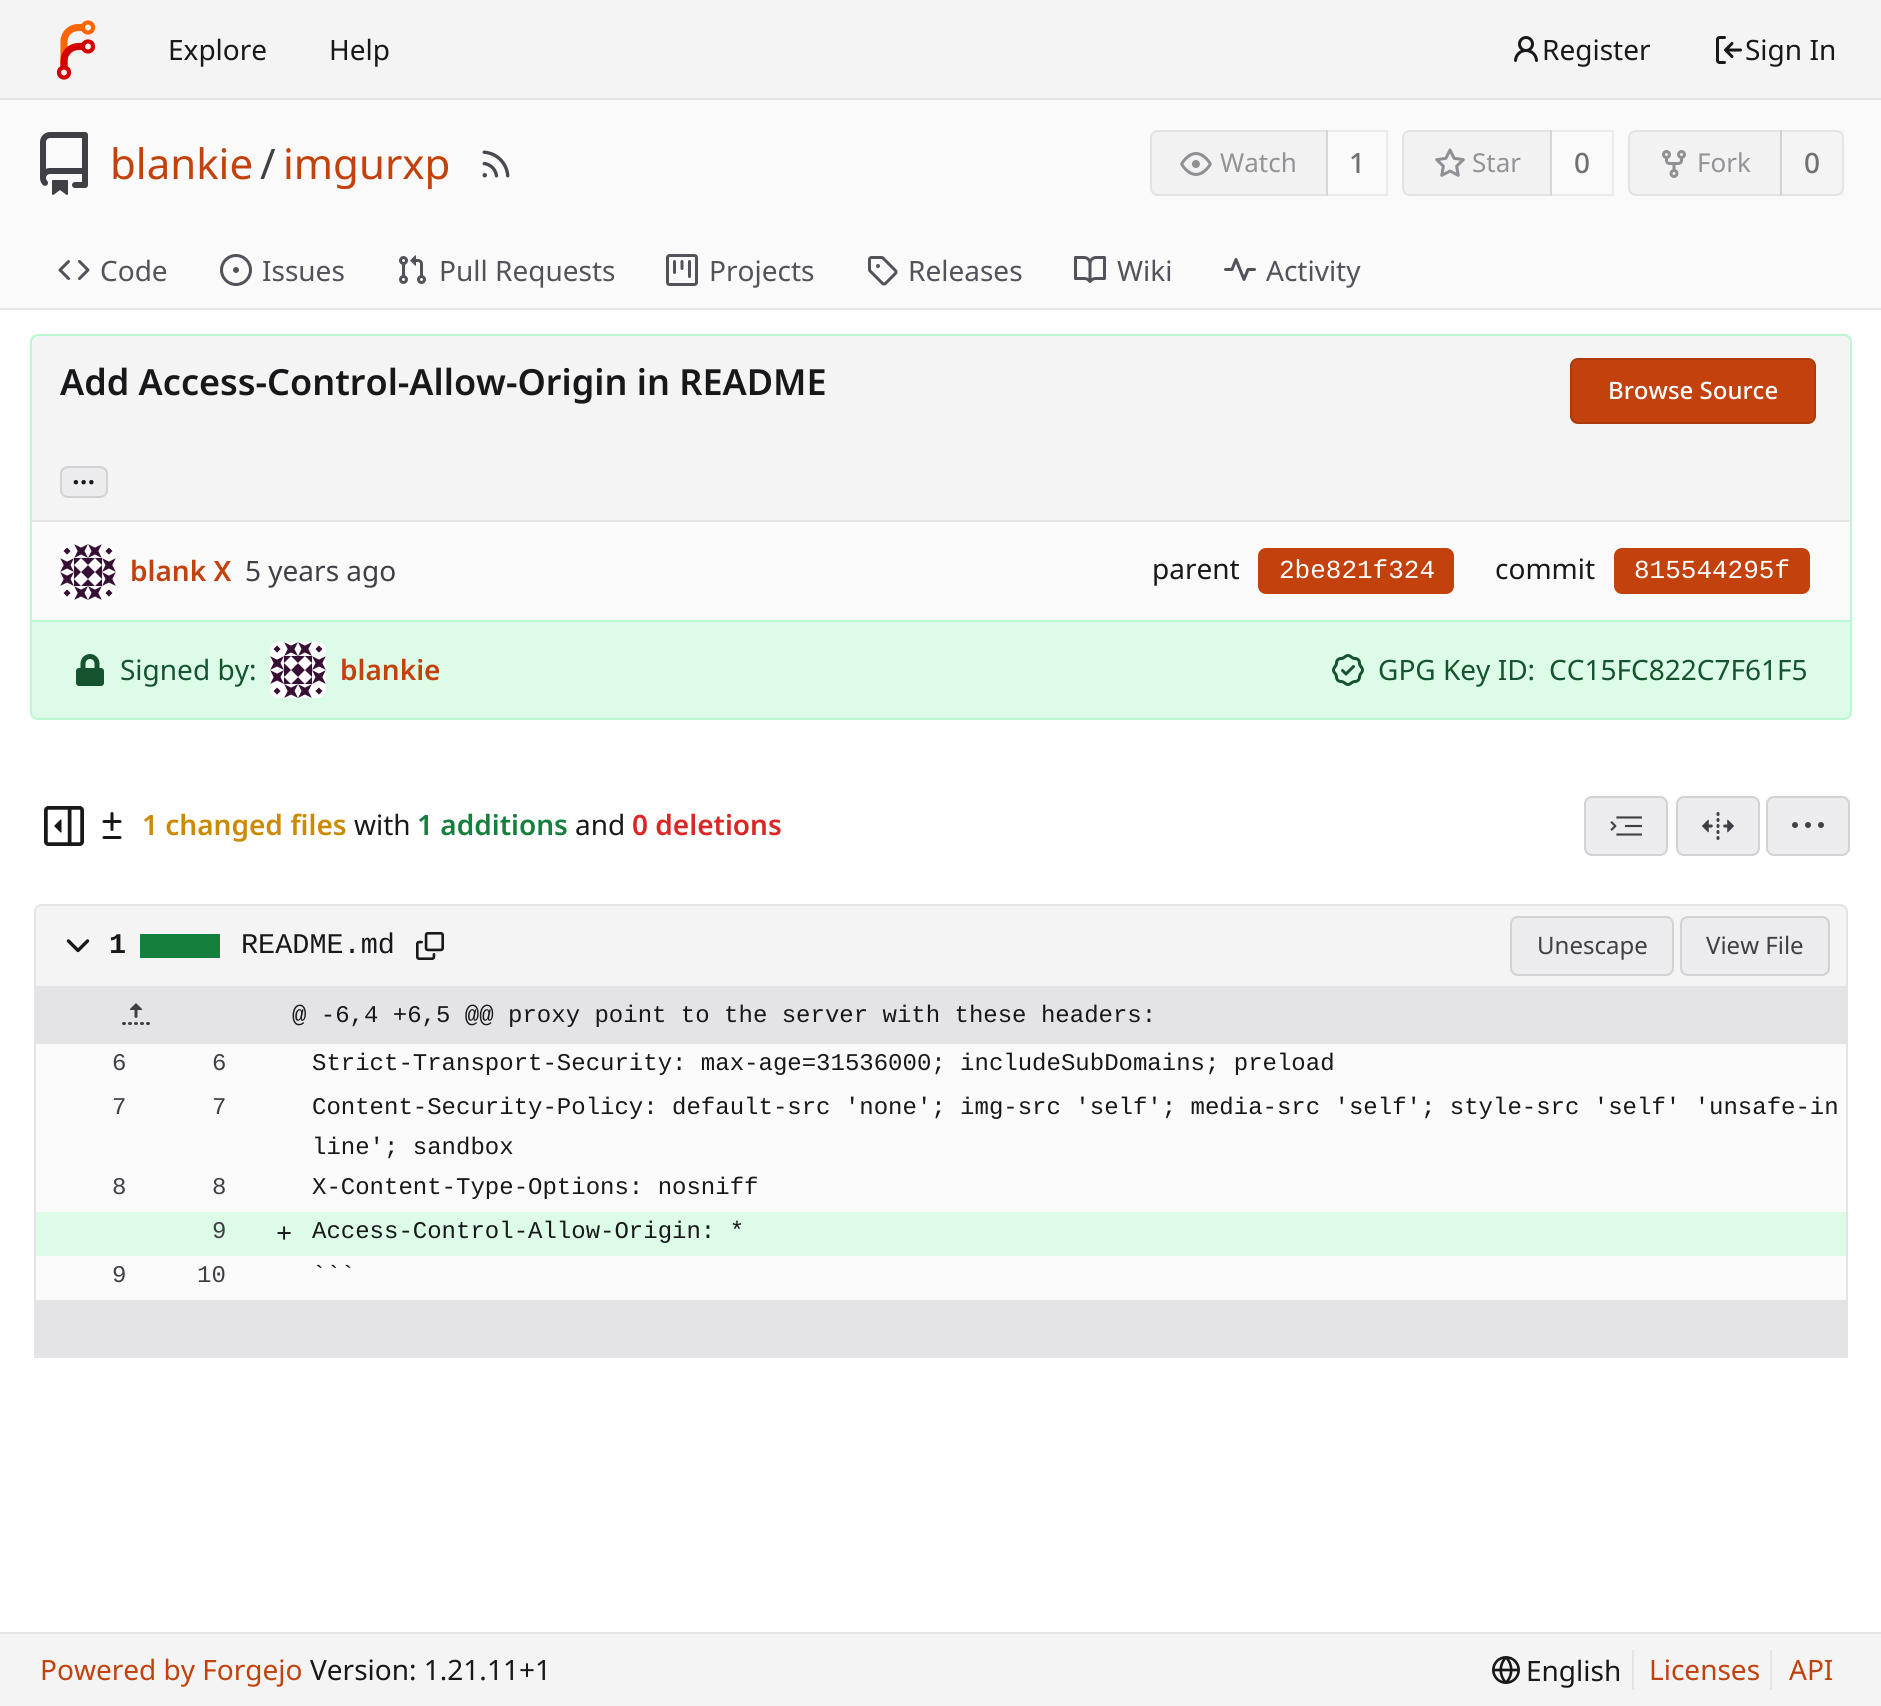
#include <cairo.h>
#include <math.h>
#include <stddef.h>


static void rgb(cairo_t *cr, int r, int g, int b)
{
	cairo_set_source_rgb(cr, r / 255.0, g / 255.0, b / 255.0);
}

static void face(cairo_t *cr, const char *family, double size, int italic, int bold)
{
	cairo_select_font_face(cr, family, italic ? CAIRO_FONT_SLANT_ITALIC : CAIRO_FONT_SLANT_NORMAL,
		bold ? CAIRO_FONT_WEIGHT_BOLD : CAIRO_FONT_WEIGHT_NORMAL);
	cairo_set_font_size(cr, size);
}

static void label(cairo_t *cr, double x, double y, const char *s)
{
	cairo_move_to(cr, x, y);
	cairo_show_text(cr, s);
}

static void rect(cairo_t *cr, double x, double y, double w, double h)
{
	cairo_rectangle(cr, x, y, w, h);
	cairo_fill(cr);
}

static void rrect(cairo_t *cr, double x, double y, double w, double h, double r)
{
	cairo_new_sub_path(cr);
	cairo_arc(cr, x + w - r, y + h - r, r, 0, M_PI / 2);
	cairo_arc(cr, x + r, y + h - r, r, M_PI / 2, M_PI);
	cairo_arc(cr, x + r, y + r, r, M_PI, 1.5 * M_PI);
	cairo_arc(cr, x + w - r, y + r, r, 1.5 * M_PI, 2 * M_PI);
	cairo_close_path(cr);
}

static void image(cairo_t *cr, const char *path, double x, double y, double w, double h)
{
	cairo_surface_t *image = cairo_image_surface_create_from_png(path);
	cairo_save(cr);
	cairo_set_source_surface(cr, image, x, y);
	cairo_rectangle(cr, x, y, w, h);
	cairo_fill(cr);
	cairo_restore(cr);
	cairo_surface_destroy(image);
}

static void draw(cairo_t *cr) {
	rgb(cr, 255, 255, 255);
	cairo_paint(cr);
	rgb(cr, 244, 244, 245);
	rect(cr, 0, 0, 1881, 98);
	rgb(cr, 228, 228, 231);
	rect(cr, 0, 98, 1881, 2);
	cairo_new_path(cr);
	cairo_move_to(cr, 64, 69);
	cairo_line_to(cr, 64, 41.5);
	cairo_curve_to(cr, 64, 33.5, 70.5, 27.5, 78.5, 27.5);
	cairo_line_to(cr, 84, 27.5);
	rgb(cr, 255, 102, 0);
	cairo_set_line_width(cr, 7.1);
	cairo_stroke(cr);
	cairo_new_path(cr);
	cairo_move_to(cr, 64, 69);
	cairo_line_to(cr, 64, 61);
	cairo_curve_to(cr, 64, 53, 70.5, 46.5, 78.5, 46.5);
	cairo_line_to(cr, 84, 46.5);
	rgb(cr, 212, 0, 0);
	cairo_stroke(cr);
	cairo_arc(cr, 88, 27.5, 5, 0, 2 * M_PI);
	rgb(cr, 255, 102, 0);
	cairo_set_line_width(cr, 4.2);
	cairo_stroke(cr);
	cairo_arc(cr, 88, 46.5, 5, 0, 2 * M_PI);
	rgb(cr, 212, 0, 0);
	cairo_stroke(cr);
	cairo_arc(cr, 64, 72.5, 5, 0, 2 * M_PI);
	cairo_stroke(cr);
	face(cr, "Noto Sans", 28, 0, 0);
	rgb(cr, 24, 24, 27);
	label(cr, 168, 60, "Explore");
	label(cr, 329, 60, "Help");
	image(cr, "image0.png", 1514, 36, 24, 26);
	label(cr, 1542, 60, "Register");
	image(cr, "image1.png", 1716, 36, 26, 28);
	label(cr, 1745, 60, "Sign In");
	rgb(cr, 250, 250, 250);
	rect(cr, 0, 100, 1881, 208);
	image(cr, "image2.png", 40, 132, 48, 63);
	face(cr, "Noto Sans", 42, 0, 0);
	rgb(cr, 194, 65, 12);
	label(cr, 110, 179, "blankie");
	rgb(cr, 63, 63, 70);
	label(cr, 260, 179, "/");
	rgb(cr, 194, 65, 12);
	label(cr, 283, 179, "imgurxp");
	image(cr, "image3.png", 482, 150, 28, 28);
	rgb(cr, 242, 242, 243);
	cairo_new_path(cr);
	cairo_move_to(cr, 1158, 130);
	cairo_line_to(cr, 1328, 130);
	cairo_line_to(cr, 1328, 196);
	cairo_line_to(cr, 1158, 196);
	cairo_curve_to(cr, 1153.5, 196, 1150, 192.5, 1150, 188);
	cairo_line_to(cr, 1150, 138);
	cairo_curve_to(cr, 1150, 133.5, 1153.5, 130, 1158, 130);
	cairo_close_path(cr);
	cairo_fill(cr);
	cairo_new_path(cr);
	cairo_move_to(cr, 1158, 131);
	cairo_line_to(cr, 1327, 131);
	cairo_line_to(cr, 1327, 195);
	cairo_line_to(cr, 1158, 195);
	cairo_curve_to(cr, 1154, 195, 1151, 192, 1151, 188);
	cairo_line_to(cr, 1151, 138);
	cairo_curve_to(cr, 1151, 134, 1154, 131, 1158, 131);
	cairo_close_path(cr);
	cairo_set_source_rgba(cr, 0.443, 0.443, 0.443, 0.11);
	cairo_set_line_width(cr, 2);
	cairo_stroke(cr);
	image(cr, "image4.png", 1180, 152, 32, 24);
	face(cr, "Noto Sans", 26, 0, 0);
	rgb(cr, 147, 147, 151);
	label(cr, 1220, 172, "Watch");
	cairo_rectangle(cr, 1327, 131, 60, 64);
	cairo_set_source_rgba(cr, 0, 0, 0, 0.06);
	cairo_stroke(cr);
	face(cr, "Noto Sans Medium", 28, 0, 0);
	rgb(cr, 113, 113, 113);
	label(cr, 1349, 173, "1");
	rgb(cr, 242, 242, 243);
	cairo_new_path(cr);
	cairo_move_to(cr, 1410, 130);
	cairo_line_to(cr, 1552, 130);
	cairo_line_to(cr, 1552, 196);
	cairo_line_to(cr, 1410, 196);
	cairo_curve_to(cr, 1405.5, 196, 1402, 192.5, 1402, 188);
	cairo_line_to(cr, 1402, 138);
	cairo_curve_to(cr, 1402, 133.5, 1405.5, 130, 1410, 130);
	cairo_close_path(cr);
	cairo_fill(cr);
	cairo_new_path(cr);
	cairo_move_to(cr, 1410, 131);
	cairo_line_to(cr, 1551, 131);
	cairo_line_to(cr, 1551, 195);
	cairo_line_to(cr, 1410, 195);
	cairo_curve_to(cr, 1406, 195, 1403, 192, 1403, 188);
	cairo_line_to(cr, 1403, 138);
	cairo_curve_to(cr, 1403, 134, 1406, 131, 1410, 131);
	cairo_close_path(cr);
	cairo_set_source_rgba(cr, 0.443, 0.443, 0.443, 0.11);
	cairo_stroke(cr);
	image(cr, "image5.png", 1435, 148, 30, 29);
	face(cr, "Noto Sans", 26, 0, 0);
	rgb(cr, 147, 147, 151);
	label(cr, 1472, 172, "Star");
	cairo_rectangle(cr, 1551, 131, 62, 64);
	cairo_set_source_rgba(cr, 0, 0, 0, 0.06);
	cairo_stroke(cr);
	face(cr, "Noto Sans Medium", 28, 0, 0);
	rgb(cr, 113, 113, 113);
	label(cr, 1574, 173, "0");
	rgb(cr, 242, 242, 243);
	cairo_new_path(cr);
	cairo_move_to(cr, 1636, 130);
	cairo_line_to(cr, 1782, 130);
	cairo_line_to(cr, 1782, 196);
	cairo_line_to(cr, 1636, 196);
	cairo_curve_to(cr, 1631.5, 196, 1628, 192.5, 1628, 188);
	cairo_line_to(cr, 1628, 138);
	cairo_curve_to(cr, 1628, 133.5, 1631.5, 130, 1636, 130);
	cairo_close_path(cr);
	cairo_fill(cr);
	cairo_new_path(cr);
	cairo_move_to(cr, 1636, 131);
	cairo_line_to(cr, 1781, 131);
	cairo_line_to(cr, 1781, 195);
	cairo_line_to(cr, 1636, 195);
	cairo_curve_to(cr, 1632, 195, 1629, 192, 1629, 188);
	cairo_line_to(cr, 1629, 138);
	cairo_curve_to(cr, 1629, 134, 1632, 131, 1636, 131);
	cairo_close_path(cr);
	cairo_set_source_rgba(cr, 0.443, 0.443, 0.443, 0.11);
	cairo_stroke(cr);
	image(cr, "image6.png", 1662, 150, 24, 28);
	face(cr, "Noto Sans", 26, 0, 0);
	rgb(cr, 147, 147, 151);
	label(cr, 1697, 172, "Fork");
	cairo_set_source_rgba(cr, 0.443, 0.443, 0.443, 0.04);
	rect(cr, 1780, 130, 64, 66);
	cairo_new_path(cr);
	cairo_move_to(cr, 1781, 131);
	cairo_line_to(cr, 1836, 131);
	cairo_curve_to(cr, 1840, 131, 1843, 134, 1843, 138);
	cairo_line_to(cr, 1843, 188);
	cairo_curve_to(cr, 1843, 192, 1840, 195, 1836, 195);
	cairo_line_to(cr, 1781, 195);
	cairo_close_path(cr);
	cairo_set_source_rgba(cr, 0.443, 0.443, 0.443, 0.11);
	cairo_stroke(cr);
	face(cr, "Noto Sans Medium", 28, 0, 0);
	rgb(cr, 113, 113, 113);
	label(cr, 1804, 173, "0");
	image(cr, "image7.png", 58, 260, 32, 20);
	face(cr, "Noto Sans", 28, 0, 0);
	rgb(cr, 82, 82, 91);
	label(cr, 100, 281, "Code");
	image(cr, "image8.png", 220, 254, 32, 32);
	label(cr, 262, 281, "Issues");
	image(cr, "image9.png", 399, 255, 27, 29);
	label(cr, 439, 281, "Pull Requests");
	image(cr, "image10.png", 666, 254, 32, 32);
	label(cr, 709, 281, "Projects");
	image(cr, "image11.png", 868, 256, 30, 30);
	label(cr, 908, 281, "Releases");
	image(cr, "image12.png", 1074, 256, 32, 27);
	label(cr, 1117, 281, "Wiki");
	image(cr, "image13.png", 1224, 258, 32, 23);
	label(cr, 1266, 281, "Activity");
	rgb(cr, 228, 228, 231);
	rect(cr, 0, 308, 1881, 2);
	rgb(cr, 244, 244, 245);
	cairo_new_path(cr);
	cairo_move_to(cr, 38, 334);
	cairo_line_to(cr, 1844, 334);
	cairo_curve_to(cr, 1848.5, 334, 1852, 337.5, 1852, 342);
	cairo_line_to(cr, 1852, 522);
	cairo_line_to(cr, 30, 522);
	cairo_line_to(cr, 30, 342);
	cairo_curve_to(cr, 30, 337.5, 33.5, 334, 38, 334);
	cairo_close_path(cr);
	cairo_fill(cr);
	rgb(cr, 187, 247, 208);
	cairo_new_path(cr);
	cairo_move_to(cr, 38, 334);
	cairo_curve_to(cr, 36, 334, 34, 335, 32, 336);
	cairo_line_to(cr, 34, 338);
	cairo_curve_to(cr, 35, 337, 36, 336, 38, 336);
	cairo_line_to(cr, 1844, 336);
	cairo_curve_to(cr, 1846, 336, 1847, 337, 1848, 338);
	cairo_line_to(cr, 1850, 336);
	cairo_curve_to(cr, 1848, 335, 1846, 334, 1844, 334);
	cairo_close_path(cr);
	cairo_fill(cr);
	cairo_new_path(cr);
	cairo_move_to(cr, 1852, 522);
	cairo_line_to(cr, 1852, 342);
	cairo_curve_to(cr, 1852, 340, 1851, 338, 1850, 336);
	cairo_line_to(cr, 1848, 338);
	cairo_line_to(cr, 1850, 341);
	cairo_line_to(cr, 1850, 520);
	cairo_close_path(cr);
	cairo_fill(cr);
	rgb(cr, 228, 228, 231);
	cairo_new_path(cr);
	cairo_move_to(cr, 1852, 522);
	cairo_line_to(cr, 1850, 520);
	cairo_line_to(cr, 32, 520);
	cairo_line_to(cr, 30, 522);
	cairo_close_path(cr);
	cairo_fill(cr);
	rgb(cr, 187, 247, 208);
	cairo_new_path(cr);
	cairo_move_to(cr, 30, 522);
	cairo_line_to(cr, 32, 520);
	cairo_line_to(cr, 32, 341);
	cairo_line_to(cr, 34, 338);
	cairo_line_to(cr, 32, 336);
	cairo_curve_to(cr, 31, 338, 30, 340, 30, 342);
	cairo_close_path(cr);
	cairo_fill(cr);
	face(cr, "Noto Sans SemiBold", 36, 0, 0);
	rgb(cr, 24, 24, 27);
	label(cr, 60, 395, "Add Access-Control-Allow-Origin in README");
	rgb(cr, 194, 65, 12);
	rrect(cr, 1570, 358, 246, 66, 8);
	cairo_fill(cr);
	rrect(cr, 1571, 359, 244, 64, 7);
	cairo_set_source_rgba(cr, 0, 0, 0, 0.11);
	cairo_stroke(cr);
	face(cr, "Noto Sans Medium", 24, 0, 0);
	rgb(cr, 255, 255, 255);
	label(cr, 1608, 399, "Browse Source");
	rgb(cr, 236, 236, 238);
	rrect(cr, 60, 466, 48, 32, 8);
	cairo_fill(cr);
	rrect(cr, 61, 467, 46, 30, 7);
	cairo_set_source_rgba(cr, 0, 0, 0, 0.11);
	cairo_stroke(cr);
	face(cr, "Noto Sans SemiBold", 28, 0, 0);
	rgb(cr, 24, 24, 27);
	label(cr, 72, 484, "...");
	rgb(cr, 250, 250, 250);
	rect(cr, 32, 522, 1818, 98);
	rgb(cr, 187, 247, 208);
	rect(cr, 1850, 522, 2, 100);
	rect(cr, 30, 522, 2, 100);
	image(cr, "image14.png", 60, 544, 56, 56);
	rgb(cr, 194, 65, 12);
	label(cr, 130, 581, "blank X");
	face(cr, "Noto Sans", 28, 0, 0);
	rgb(cr, 63, 63, 70);
	label(cr, 245, 581, "5 years ago");
	rgb(cr, 24, 24, 27);
	label(cr, 1152, 579, "parent");
	rgb(cr, 194, 65, 12);
	rrect(cr, 1258, 548, 196, 46, 8);
	cairo_fill(cr);
	face(cr, "Liberation Mono", 26, 0, 0);
	rgb(cr, 255, 255, 255);
	label(cr, 1279, 578, "2be821f324");
	face(cr, "Noto Sans", 28, 0, 0);
	rgb(cr, 24, 24, 27);
	label(cr, 1495, 579, "commit");
	rgb(cr, 194, 65, 12);
	rrect(cr, 1614, 548, 196, 46, 8);
	cairo_fill(cr);
	face(cr, "Liberation Mono", 26, 0, 0);
	rgb(cr, 255, 255, 255);
	label(cr, 1634, 578, "815544295f");
	rgb(cr, 220, 252, 231);
	cairo_new_path(cr);
	cairo_move_to(cr, 31, 621);
	cairo_line_to(cr, 1851, 621);
	cairo_line_to(cr, 1851, 712);
	cairo_curve_to(cr, 1851, 716, 1848, 719, 1844, 719);
	cairo_line_to(cr, 38, 719);
	cairo_curve_to(cr, 34, 719, 31, 716, 31, 712);
	cairo_close_path(cr);
	cairo_fill_preserve(cr);
	rgb(cr, 187, 247, 208);
	cairo_stroke(cr);
	image(cr, "image15.png", 76, 654, 28, 32);
	face(cr, "Noto Sans", 28, 0, 0);
	rgb(cr, 20, 83, 45);
	label(cr, 120, 680, "Signed by:");
	image(cr, "image16.png", 270, 642, 56, 56);
	face(cr, "Noto Sans SemiBold", 28, 0, 0);
	rgb(cr, 194, 65, 12);
	label(cr, 340, 680, "blankie");
	image(cr, "image17.png", 1332, 654, 32, 32);
	face(cr, "Noto Sans", 28, 0, 0);
	rgb(cr, 20, 83, 45);
	label(cr, 1378, 680, "GPG Key ID:");
	label(cr, 1549, 680, "CC15FC822C7F61F5");
	image(cr, "image18.png", 44, 806, 40, 40);
	image(cr, "image19.png", 102, 812, 20, 27);
	face(cr, "Noto Sans SemiBold", 28, 0, 0);
	rgb(cr, 202, 138, 4);
	label(cr, 142, 835, "1 changed files");
	face(cr, "Noto Sans", 28, 0, 0);
	rgb(cr, 24, 24, 27);
	label(cr, 354, 835, "with");
	face(cr, "Noto Sans SemiBold", 28, 0, 0);
	rgb(cr, 21, 128, 61);
	label(cr, 417, 835, "1 additions");
	face(cr, "Noto Sans", 28, 0, 0);
	rgb(cr, 24, 24, 27);
	label(cr, 575, 835, "and");
	face(cr, "Noto Sans SemiBold", 28, 0, 0);
	rgb(cr, 220, 38, 38);
	label(cr, 632, 835, "0 deletions");
	rgb(cr, 236, 236, 238);
	rrect(cr, 1584, 796, 84, 60, 8);
	cairo_fill(cr);
	rrect(cr, 1585, 797, 82, 58, 7);
	cairo_set_source_rgba(cr, 0, 0, 0, 0.11);
	cairo_stroke(cr);
	image(cr, "image20.png", 1610, 816, 32, 20);
	rgb(cr, 236, 236, 238);
	rrect(cr, 1676, 796, 84, 60, 8);
	cairo_fill(cr);
	rrect(cr, 1677, 797, 82, 58, 7);
	cairo_set_source_rgba(cr, 0, 0, 0, 0.11);
	cairo_stroke(cr);
	image(cr, "image21.png", 1702, 812, 32, 28);
	rgb(cr, 236, 236, 238);
	rrect(cr, 1766, 796, 84, 60, 8);
	cairo_fill(cr);
	rrect(cr, 1767, 797, 82, 58, 7);
	cairo_set_source_rgba(cr, 0, 0, 0, 0.11);
	cairo_stroke(cr);
	image(cr, "image22.png", 1792, 822, 32, 6);
	rgb(cr, 244, 244, 245);
	cairo_new_path(cr);
	cairo_move_to(cr, 42, 905);
	cairo_line_to(cr, 1840, 905);
	cairo_curve_to(cr, 1844, 905, 1847, 908, 1847, 912);
	cairo_line_to(cr, 1847, 987);
	cairo_line_to(cr, 35, 987);
	cairo_line_to(cr, 35, 912);
	cairo_curve_to(cr, 35, 908, 38, 905, 42, 905);
	cairo_close_path(cr);
	cairo_fill_preserve(cr);
	rgb(cr, 228, 228, 231);
	cairo_stroke(cr);
	image(cr, "image23.png", 66, 939, 24, 14);
	face(cr, "Liberation Mono", 28.5, 0, 1);
	rgb(cr, 24, 24, 27);
	label(cr, 109, 953, "1");
	rgb(cr, 21, 128, 61);
	rect(cr, 140, 934, 80, 24);
	face(cr, "Liberation Mono", 28.5, 0, 0);
	rgb(cr, 24, 24, 27);
	label(cr, 241, 953, "README.md");
	image(cr, "image24.png", 416, 932, 28, 28);
	rgb(cr, 236, 236, 238);
	rrect(cr, 1510, 916, 164, 60, 8);
	cairo_fill(cr);
	rrect(cr, 1511, 917, 162, 58, 7);
	cairo_set_source_rgba(cr, 0, 0, 0, 0.11);
	cairo_stroke(cr);
	face(cr, "Noto Sans", 24, 0, 0);
	rgb(cr, 63, 63, 70);
	label(cr, 1537, 954, "Unescape");
	rgb(cr, 236, 236, 238);
	rrect(cr, 1680, 916, 150, 60, 8);
	cairo_fill(cr);
	rrect(cr, 1681, 917, 148, 58, 7);
	cairo_set_source_rgba(cr, 0, 0, 0, 0.11);
	cairo_stroke(cr);
	rgb(cr, 63, 63, 70);
	label(cr, 1706, 954, "View File");
	rgb(cr, 250, 250, 250);
	rect(cr, 36, 1044, 1810, 256);
	rgb(cr, 228, 228, 231);
	rect(cr, 1846, 988, 2, 370);
	rect(cr, 34, 1356, 1814, 2);
	rect(cr, 34, 988, 2, 370);
	rect(cr, 36, 988, 1810, 56);
	image(cr, "image25.png", 122, 1003, 28, 22);
	face(cr, "Liberation Mono", 24, 0, 0);
	rgb(cr, 24, 24, 27);
	label(cr, 292, 1022, "@ -6,4 +6,5 @@ proxy point to the server with these headers:");
	rgb(cr, 63, 63, 70);
	label(cr, 112, 1070, "6");
	label(cr, 212, 1070, "6");
	rgb(cr, 24, 24, 27);
	label(cr, 312, 1070, "Strict-Transport-Security: max-age=31536000; includeSubDomains; preload");
	rgb(cr, 63, 63, 70);
	label(cr, 112, 1114, "7");
	label(cr, 212, 1114, "7");
	rgb(cr, 24, 24, 27);
	label(cr, 312, 1114, "Content-Security-Policy: default-src 'none'; img-src 'self'; media-src 'self'; style-src 'self' 'unsafe-in");
	label(cr, 312, 1154, "line'; sandbox");
	rgb(cr, 63, 63, 70);
	label(cr, 112, 1194, "8");
	label(cr, 212, 1194, "8");
	rgb(cr, 24, 24, 27);
	label(cr, 312, 1194, "X-Content-Type-Options: nosniff");
	rgb(cr, 220, 252, 231);
	rect(cr, 36, 1212, 1810, 44);
	rgb(cr, 63, 63, 70);
	label(cr, 212, 1238, "9");
	face(cr, "Liberation Mono", 27, 0, 0);
	rgb(cr, 24, 24, 27);
	label(cr, 276, 1242, "+");
	face(cr, "Liberation Mono", 24, 0, 0);
	label(cr, 312, 1238, "Access-Control-Allow-Origin: *");
	rgb(cr, 63, 63, 70);
	label(cr, 112, 1282, "9");
	label(cr, 197, 1282, "10");
	rgb(cr, 24, 24, 27);
	label(cr, 312, 1282, "```");
	rgb(cr, 228, 228, 231);
	rect(cr, 36, 1300, 1810, 56);
	rgb(cr, 244, 244, 245);
	rect(cr, 0, 1634, 1881, 72);
	rgb(cr, 228, 228, 231);
	rect(cr, 0, 1632, 1881, 2);
	face(cr, "Noto Sans", 28, 0, 0);
	rgb(cr, 194, 65, 12);
	label(cr, 40, 1680, "Powered by Forgejo");
	rgb(cr, 24, 24, 27);
	label(cr, 310, 1680, "Version: 1.21.11+1");
	image(cr, "image26.png", 1492, 1656, 28, 28);
	label(cr, 1526, 1681, "English");
	rgb(cr, 228, 228, 231);
	rect(cr, 1632, 1650, 2, 40);
	rgb(cr, 194, 65, 12);
	label(cr, 1649, 1680, "Licenses");
	rgb(cr, 228, 228, 231);
	rect(cr, 1770, 1650, 2, 40);
	rgb(cr, 194, 65, 12);
	label(cr, 1789, 1680, "API");
}

int main(void) {
	cairo_surface_t *surface = cairo_image_surface_create(CAIRO_FORMAT_RGB24, 1881, 1706);
	cairo_t *cr = cairo_create(surface);
	cairo_font_options_t *options = cairo_font_options_create();
	cairo_font_options_set_hint_metrics(options, CAIRO_HINT_METRICS_OFF);
	cairo_font_options_set_hint_style(options, CAIRO_HINT_STYLE_NONE);
	cairo_set_font_options(cr, options);
	cairo_set_miter_limit(cr, 4);
	draw(cr);
	cairo_surface_write_to_png(surface, "render.png");
	cairo_font_options_destroy(options);
	cairo_destroy(cr);
	cairo_surface_destroy(surface);
	return 0;
}
